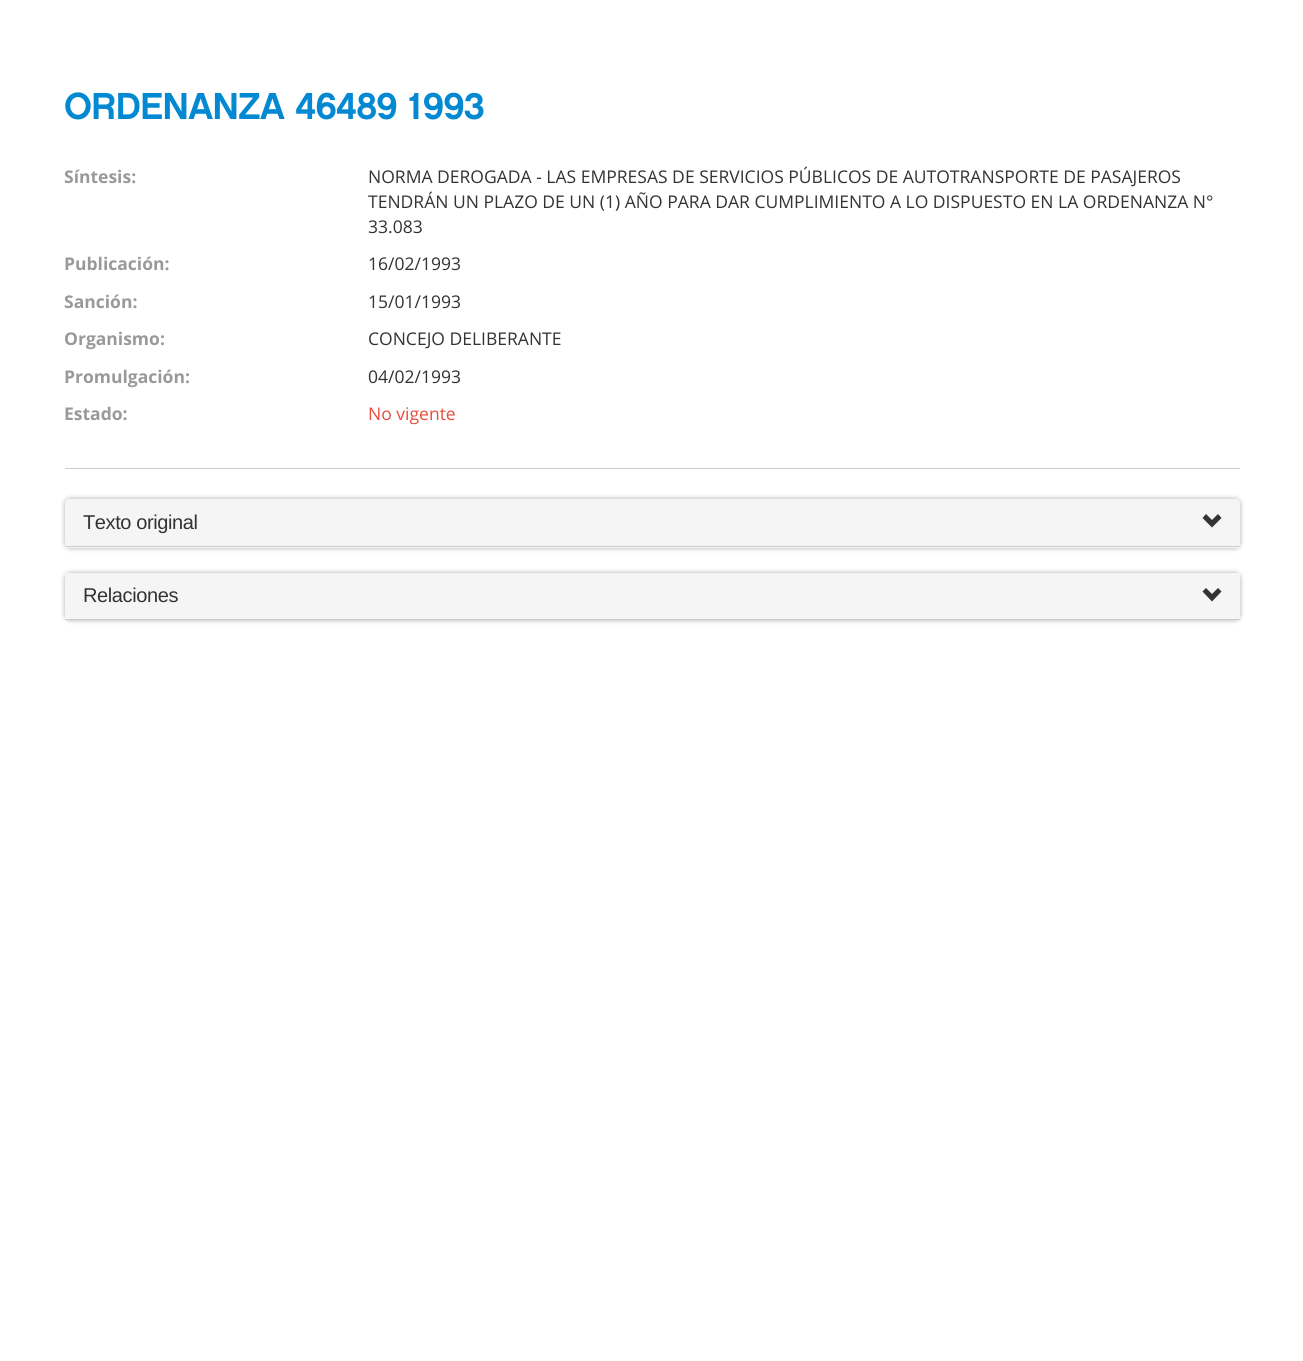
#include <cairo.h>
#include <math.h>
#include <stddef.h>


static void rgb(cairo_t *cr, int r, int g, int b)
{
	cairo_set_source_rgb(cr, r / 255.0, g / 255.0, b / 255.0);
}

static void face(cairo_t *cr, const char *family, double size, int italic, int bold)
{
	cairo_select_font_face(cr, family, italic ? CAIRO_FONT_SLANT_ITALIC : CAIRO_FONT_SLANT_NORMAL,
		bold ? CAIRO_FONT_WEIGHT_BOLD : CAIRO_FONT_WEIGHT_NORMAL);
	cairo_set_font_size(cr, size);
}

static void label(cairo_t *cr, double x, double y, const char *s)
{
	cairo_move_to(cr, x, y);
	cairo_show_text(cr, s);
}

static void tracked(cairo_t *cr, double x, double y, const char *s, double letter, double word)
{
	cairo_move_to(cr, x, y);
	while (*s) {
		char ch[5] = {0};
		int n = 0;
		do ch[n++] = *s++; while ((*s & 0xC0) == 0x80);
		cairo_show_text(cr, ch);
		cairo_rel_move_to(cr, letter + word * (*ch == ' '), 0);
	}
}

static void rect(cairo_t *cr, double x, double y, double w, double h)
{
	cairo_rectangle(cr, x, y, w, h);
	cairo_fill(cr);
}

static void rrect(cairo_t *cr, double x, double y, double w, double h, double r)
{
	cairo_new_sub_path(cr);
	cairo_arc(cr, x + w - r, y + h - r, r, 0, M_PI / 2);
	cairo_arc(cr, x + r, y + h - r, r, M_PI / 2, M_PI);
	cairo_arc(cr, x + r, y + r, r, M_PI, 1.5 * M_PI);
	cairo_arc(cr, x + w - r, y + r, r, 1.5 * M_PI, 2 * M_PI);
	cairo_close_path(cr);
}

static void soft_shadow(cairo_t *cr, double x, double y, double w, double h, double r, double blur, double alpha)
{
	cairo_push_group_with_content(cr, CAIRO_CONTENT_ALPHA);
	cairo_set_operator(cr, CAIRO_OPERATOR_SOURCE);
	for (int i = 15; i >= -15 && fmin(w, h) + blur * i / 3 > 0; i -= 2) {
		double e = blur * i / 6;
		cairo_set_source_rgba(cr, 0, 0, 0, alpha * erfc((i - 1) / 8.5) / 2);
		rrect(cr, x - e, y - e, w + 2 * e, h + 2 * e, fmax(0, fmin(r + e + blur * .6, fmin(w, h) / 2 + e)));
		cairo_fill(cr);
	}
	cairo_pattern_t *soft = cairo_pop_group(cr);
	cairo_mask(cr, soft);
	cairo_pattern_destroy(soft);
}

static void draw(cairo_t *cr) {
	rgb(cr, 255, 255, 255);
	cairo_paint(cr);
	face(cr, "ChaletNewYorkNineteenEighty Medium", 37.5, 0, 0);
	rgb(cr, 3, 137, 209);
	tracked(cr, 64, 119, "ORDENANZA 46489 1993", -0.6, 0);
	face(cr, "Open Sans", 17.5, 0, 1);
	rgb(cr, 153, 153, 153);
	label(cr, 64, 183, "Síntesis:");
	face(cr, "Open Sans", 17.5, 0, 0);
	rgb(cr, 51, 51, 51);
	label(cr, 368, 183, "NORMA DEROGADA - LAS EMPRESAS DE SERVICIOS PÚBLICOS DE AUTOTRANSPORTE DE PASAJEROS");
	label(cr, 368, 208, "TENDRÁN UN PLAZO DE UN (1) AÑO PARA DAR CUMPLIMIENTO A LO DISPUESTO EN LA ORDENANZA N°");
	label(cr, 368, 233, "33.083");
	face(cr, "Open Sans", 17.5, 0, 1);
	rgb(cr, 153, 153, 153);
	label(cr, 64, 270, "Publicación:");
	face(cr, "Open Sans", 17.5, 0, 0);
	rgb(cr, 51, 51, 51);
	label(cr, 368, 270, "16/02/1993");
	face(cr, "Open Sans", 17.5, 0, 1);
	rgb(cr, 153, 153, 153);
	label(cr, 64, 308, "Sanción:");
	face(cr, "Open Sans", 17.5, 0, 0);
	rgb(cr, 51, 51, 51);
	label(cr, 368, 308, "15/01/1993");
	face(cr, "Open Sans", 17.5, 0, 1);
	rgb(cr, 153, 153, 153);
	label(cr, 64, 345, "Organismo:");
	face(cr, "Open Sans", 17.5, 0, 0);
	rgb(cr, 51, 51, 51);
	label(cr, 368, 345, "CONCEJO DELIBERANTE");
	face(cr, "Open Sans", 17.5, 0, 1);
	rgb(cr, 153, 153, 153);
	label(cr, 64, 383, "Promulgación:");
	face(cr, "Open Sans", 17.5, 0, 0);
	rgb(cr, 51, 51, 51);
	label(cr, 368, 383, "04/02/1993");
	face(cr, "Open Sans", 17.5, 0, 1);
	rgb(cr, 153, 153, 153);
	label(cr, 64, 420, "Estado:");
	face(cr, "Open Sans", 17.5, 0, 0);
	rgb(cr, 231, 76, 60);
	label(cr, 368, 420, "No vigente");
	rgb(cr, 204, 204, 204);
	rect(cr, 65, 468, 1175, 1);
	rgb(cr, 170, 170, 170);
	soft_shadow(cr, 65, 499, 1175, 49, 5, 2.5, 1);
	rgb(cr, 245, 245, 245);
	cairo_new_path(cr);
	cairo_move_to(cr, 69, 499);
	cairo_line_to(cr, 1236, 499);
	cairo_curve_to(cr, 1238, 499, 1240, 501, 1240, 503);
	cairo_line_to(cr, 1240, 548);
	cairo_line_to(cr, 65, 548);
	cairo_line_to(cr, 65, 503);
	cairo_curve_to(cr, 65, 501, 67, 499, 69, 499);
	cairo_close_path(cr);
	cairo_fill(cr);
	rgb(cr, 204, 204, 204);
	rect(cr, 65, 546, 1175, 1);
	face(cr, "Liberation Sans", 20, 0, 0);
	rgb(cr, 51, 51, 51);
	tracked(cr, 83, 529, "Texto original", -0.4, 0);
	cairo_new_path(cr);
	cairo_move_to(cr, 1202.5, 518);
	cairo_line_to(cr, 1212, 527.5);
	cairo_line_to(cr, 1221.5, 518);
	cairo_line_to(cr, 1218, 514);
	cairo_line_to(cr, 1212, 520);
	cairo_line_to(cr, 1206, 514);
	cairo_close_path(cr);
	cairo_fill(cr);
	rgb(cr, 170, 170, 170);
	soft_shadow(cr, 65, 573, 1175, 47, 5, 2.5, 1);
	rgb(cr, 245, 245, 245);
	rect(cr, 65, 573, 1175, 46);
	rgb(cr, 204, 204, 204);
	rect(cr, 65, 619, 1175, 1);
	rgb(cr, 51, 51, 51);
	tracked(cr, 83, 602, "Relaciones", -0.4, 0);
	cairo_new_path(cr);
	cairo_move_to(cr, 1202.5, 591.5);
	cairo_line_to(cr, 1212, 601.5);
	cairo_line_to(cr, 1221.5, 591.5);
	cairo_line_to(cr, 1218, 588);
	cairo_line_to(cr, 1212, 594);
	cairo_line_to(cr, 1206, 588);
	cairo_close_path(cr);
	cairo_fill(cr);
}

int main(void) {
	cairo_surface_t *surface = cairo_image_surface_create(CAIRO_FORMAT_RGB24, 1303, 1361);
	cairo_t *cr = cairo_create(surface);
	cairo_font_options_t *options = cairo_font_options_create();
	cairo_font_options_set_hint_metrics(options, CAIRO_HINT_METRICS_OFF);
	cairo_font_options_set_hint_style(options, CAIRO_HINT_STYLE_NONE);
	cairo_set_font_options(cr, options);
	cairo_set_miter_limit(cr, 4);
	draw(cr);
	cairo_surface_write_to_png(surface, "render.png");
	cairo_font_options_destroy(options);
	cairo_destroy(cr);
	cairo_surface_destroy(surface);
	return 0;
}
